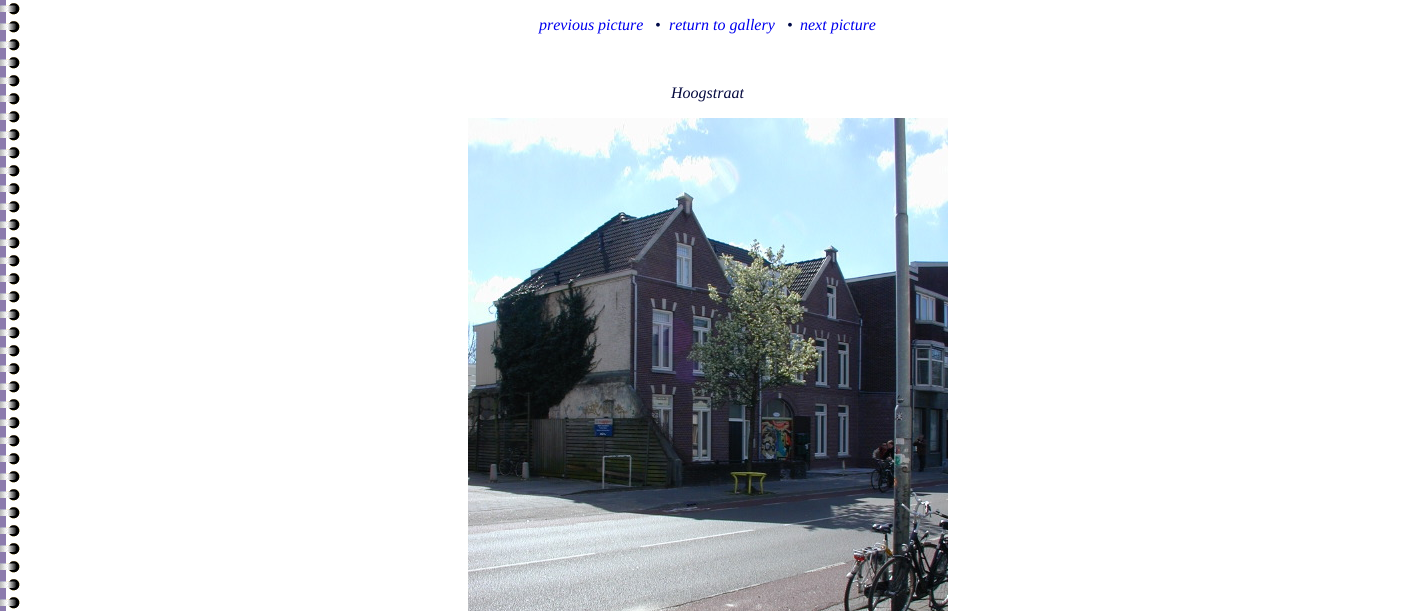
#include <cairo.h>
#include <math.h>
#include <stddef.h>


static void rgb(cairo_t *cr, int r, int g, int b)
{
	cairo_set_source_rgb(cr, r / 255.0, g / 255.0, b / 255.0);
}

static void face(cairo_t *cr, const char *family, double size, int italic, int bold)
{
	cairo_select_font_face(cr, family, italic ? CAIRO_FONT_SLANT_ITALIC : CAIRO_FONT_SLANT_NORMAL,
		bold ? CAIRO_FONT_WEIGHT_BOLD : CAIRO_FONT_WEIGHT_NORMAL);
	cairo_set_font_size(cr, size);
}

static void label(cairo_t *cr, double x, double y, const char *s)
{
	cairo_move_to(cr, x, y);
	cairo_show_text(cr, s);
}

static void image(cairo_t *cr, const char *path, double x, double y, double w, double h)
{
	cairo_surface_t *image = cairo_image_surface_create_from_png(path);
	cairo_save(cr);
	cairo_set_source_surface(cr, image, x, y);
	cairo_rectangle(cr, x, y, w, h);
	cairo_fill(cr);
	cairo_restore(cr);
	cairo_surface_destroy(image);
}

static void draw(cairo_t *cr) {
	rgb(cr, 255, 255, 255);
	cairo_paint(cr);
	image(cr, "image0.png", 0, 0, 20, 611);
	face(cr, "Liberation Serif", 16, 1, 0);
	rgb(cr, 0, 0, 238);
	label(cr, 539, 30, "previous picture");
	rgb(cr, 0, 10, 72);
	label(cr, 655, 30, "•");
	rgb(cr, 0, 0, 238);
	label(cr, 669, 30, "return to gallery");
	rgb(cr, 0, 10, 72);
	label(cr, 787, 30, "•");
	rgb(cr, 0, 0, 238);
	label(cr, 800, 30, "next picture");
	rgb(cr, 4, 9, 63);
	label(cr, 671, 98, "Hoogstraat");
	image(cr, "image1.png", 468, 118, 480, 493);
}

int main(void) {
	cairo_surface_t *surface = cairo_image_surface_create(CAIRO_FORMAT_RGB24, 1415, 611);
	cairo_t *cr = cairo_create(surface);
	cairo_font_options_t *options = cairo_font_options_create();
	cairo_font_options_set_hint_metrics(options, CAIRO_HINT_METRICS_OFF);
	cairo_font_options_set_hint_style(options, CAIRO_HINT_STYLE_NONE);
	cairo_set_font_options(cr, options);
	cairo_set_miter_limit(cr, 4);
	draw(cr);
	cairo_surface_write_to_png(surface, "render.png");
	cairo_font_options_destroy(options);
	cairo_destroy(cr);
	cairo_surface_destroy(surface);
	return 0;
}
